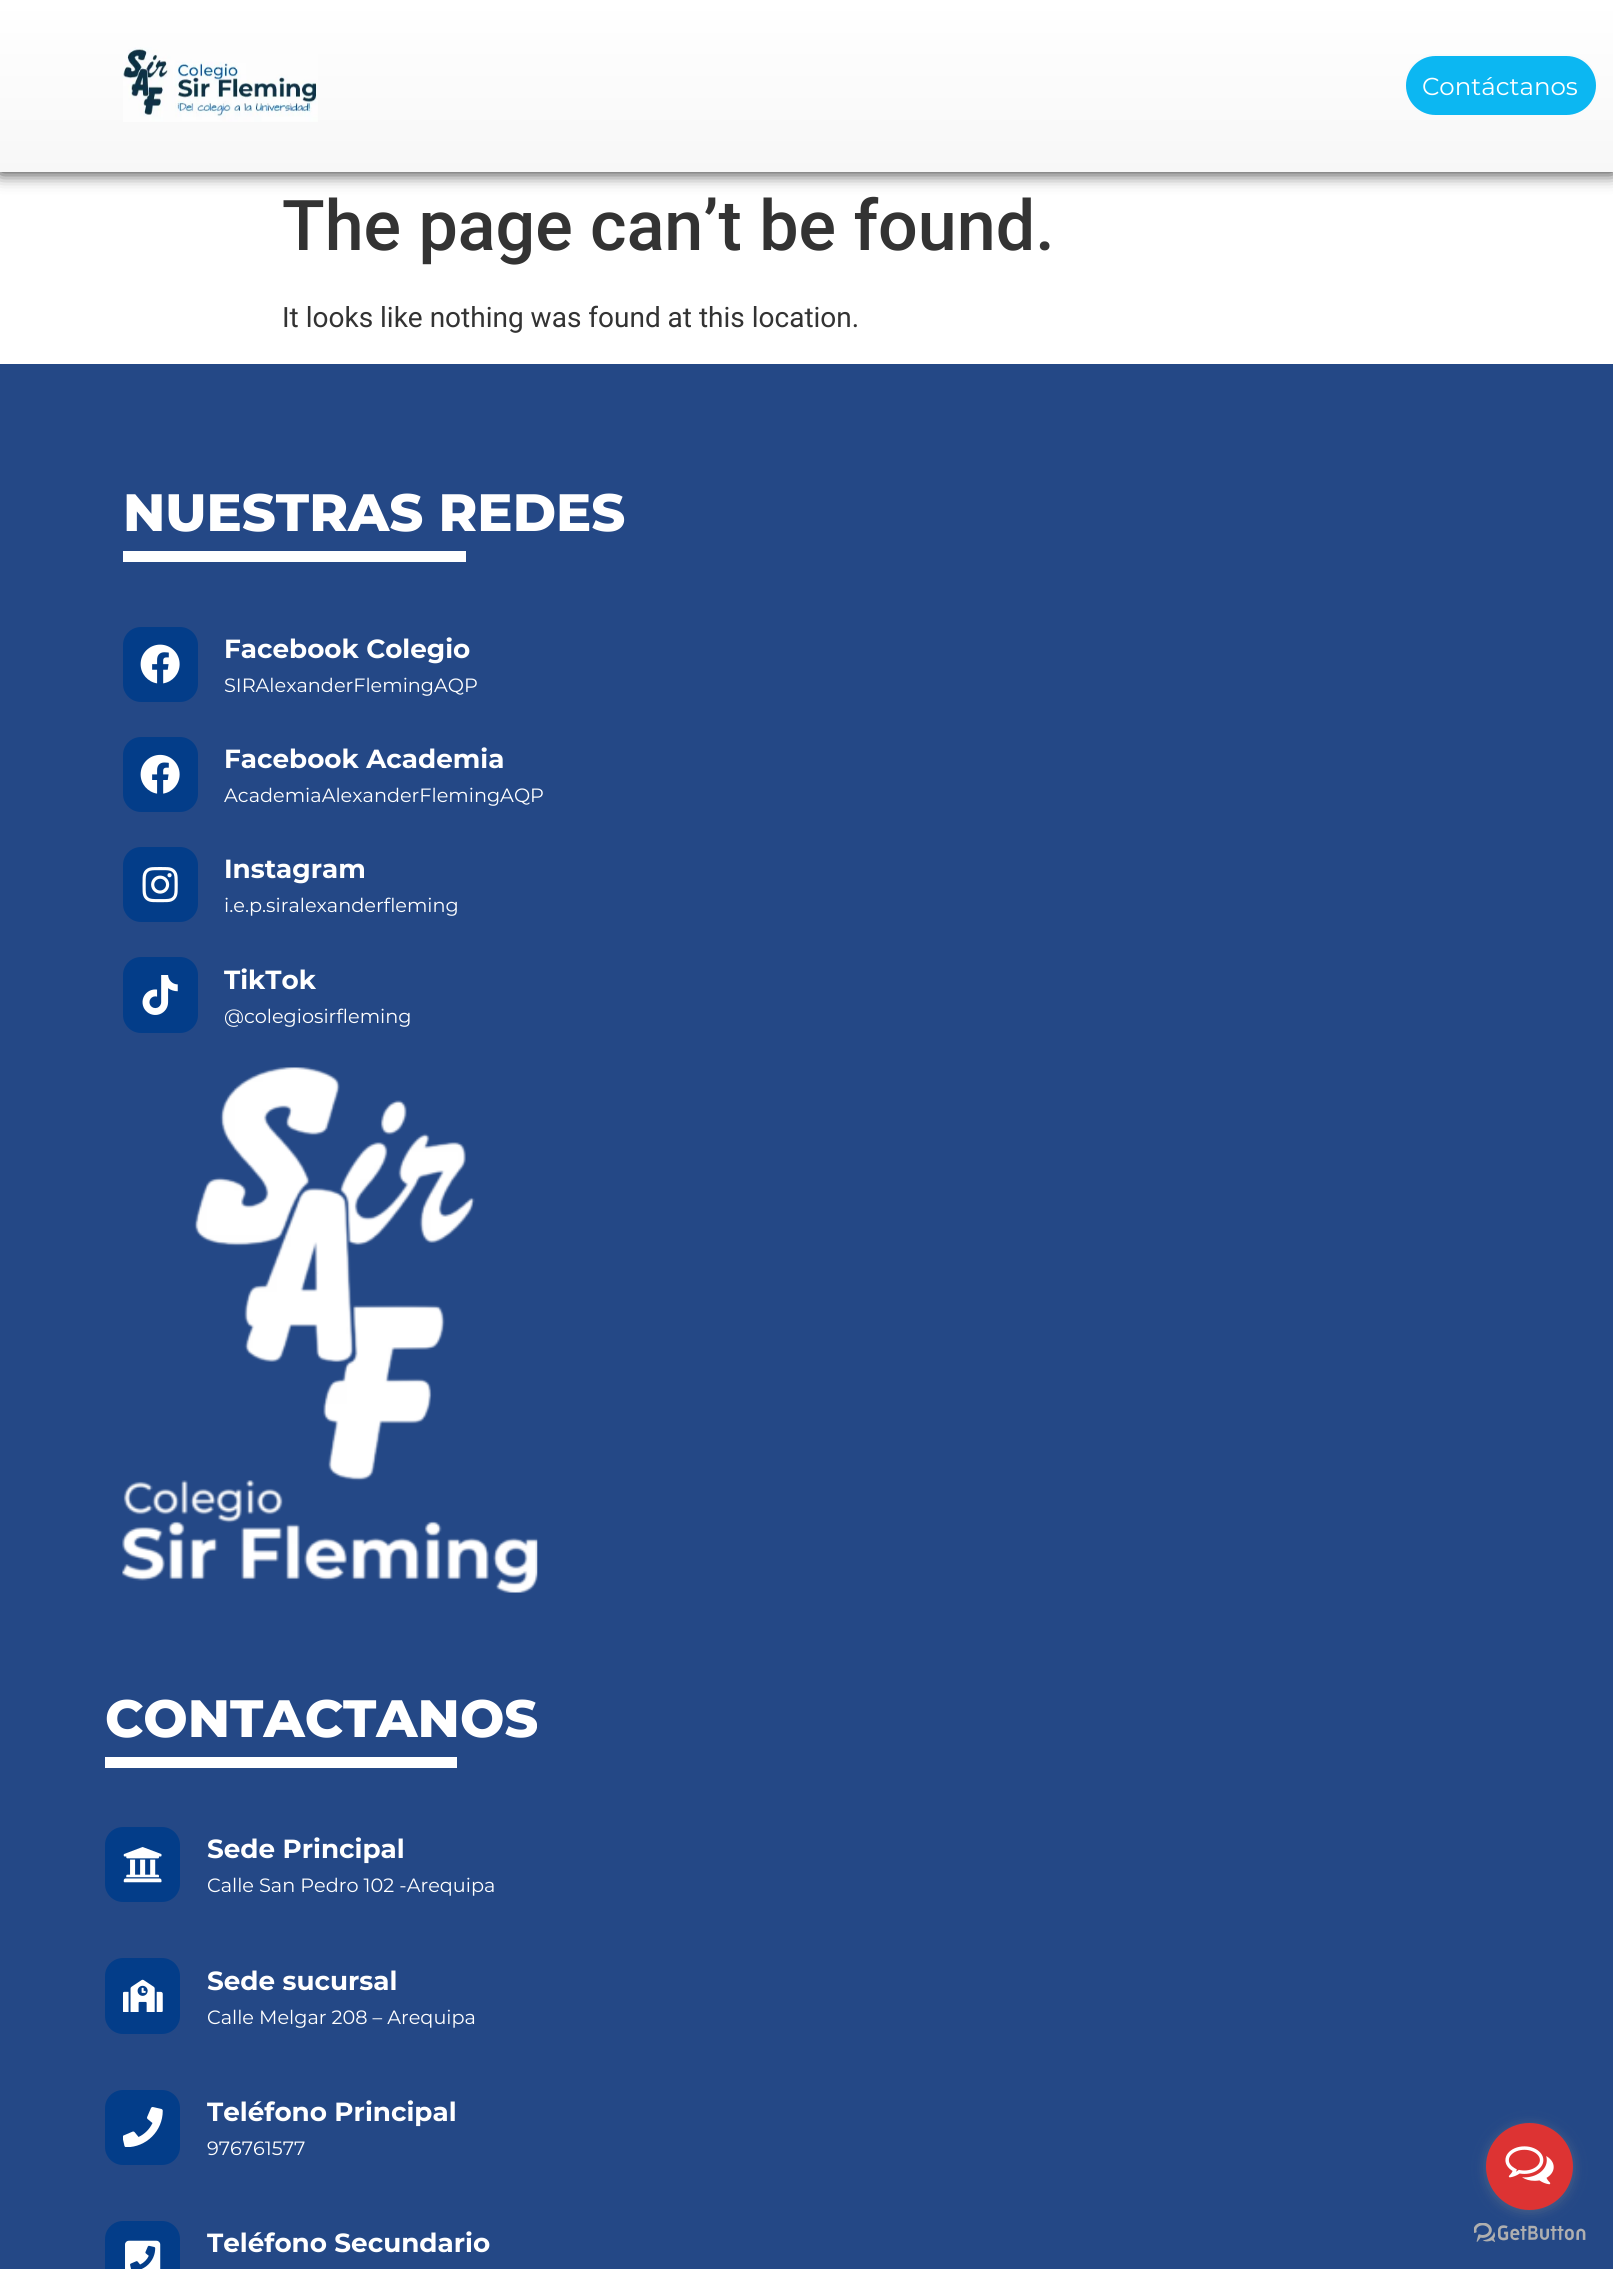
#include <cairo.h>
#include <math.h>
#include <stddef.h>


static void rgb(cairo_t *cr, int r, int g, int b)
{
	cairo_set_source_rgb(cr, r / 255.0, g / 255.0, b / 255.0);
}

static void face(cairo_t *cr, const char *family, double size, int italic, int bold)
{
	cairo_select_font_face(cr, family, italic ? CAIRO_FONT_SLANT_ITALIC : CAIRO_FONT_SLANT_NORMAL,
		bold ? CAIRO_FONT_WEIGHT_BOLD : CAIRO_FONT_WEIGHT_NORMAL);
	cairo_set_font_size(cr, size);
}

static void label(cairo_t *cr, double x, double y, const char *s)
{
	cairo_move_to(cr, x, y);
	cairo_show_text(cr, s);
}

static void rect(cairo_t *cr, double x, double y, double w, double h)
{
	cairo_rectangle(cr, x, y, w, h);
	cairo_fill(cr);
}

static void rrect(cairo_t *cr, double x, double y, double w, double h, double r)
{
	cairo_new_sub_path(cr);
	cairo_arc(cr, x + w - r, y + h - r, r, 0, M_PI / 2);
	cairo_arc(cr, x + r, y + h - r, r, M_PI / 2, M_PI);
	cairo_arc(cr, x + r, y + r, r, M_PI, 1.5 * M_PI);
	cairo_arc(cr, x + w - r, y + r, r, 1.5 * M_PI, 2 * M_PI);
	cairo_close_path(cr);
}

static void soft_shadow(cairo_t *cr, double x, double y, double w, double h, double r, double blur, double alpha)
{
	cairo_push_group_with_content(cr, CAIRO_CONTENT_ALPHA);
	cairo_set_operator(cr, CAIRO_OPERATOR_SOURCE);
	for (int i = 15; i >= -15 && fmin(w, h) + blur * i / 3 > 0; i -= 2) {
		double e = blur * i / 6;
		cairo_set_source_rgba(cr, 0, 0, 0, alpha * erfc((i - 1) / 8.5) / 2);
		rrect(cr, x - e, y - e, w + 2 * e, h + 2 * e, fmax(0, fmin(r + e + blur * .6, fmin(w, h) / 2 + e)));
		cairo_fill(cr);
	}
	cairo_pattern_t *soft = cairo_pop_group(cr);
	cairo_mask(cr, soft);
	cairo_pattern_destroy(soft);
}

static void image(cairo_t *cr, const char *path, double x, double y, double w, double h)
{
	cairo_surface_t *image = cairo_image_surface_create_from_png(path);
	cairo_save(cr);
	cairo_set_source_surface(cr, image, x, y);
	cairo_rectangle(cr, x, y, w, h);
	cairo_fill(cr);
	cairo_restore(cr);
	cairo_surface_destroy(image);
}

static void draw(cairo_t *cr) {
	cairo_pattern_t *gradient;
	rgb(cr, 255, 255, 255);
	cairo_paint(cr);
	rgb(cr, 0, 0, 0);
	soft_shadow(cr, 0, 0, 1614, 172, 0, 9, 0.91);
	gradient = cairo_pattern_create_linear(807, 0, 807, 172);
	cairo_pattern_add_color_stop_rgba(gradient, 0, 1, 1, 1, 1);
	cairo_pattern_add_color_stop_rgba(gradient, 1, 0.969, 0.969, 0.969, 1);
	cairo_set_source(cr, gradient);
	cairo_pattern_destroy(gradient);
	rect(cr, 0, 0, 1613, 172);
	image(cr, "image0.png", 123, 47, 195, 75);
	rgb(cr, 12, 183, 242);
	rrect(cr, 1405, 55, 192, 61, 30.5);
	cairo_fill_preserve(cr);
	rgb(cr, 250, 250, 250);
	cairo_stroke(cr);
	face(cr, "Montserrat", 24.5, 0, 0);
	rgb(cr, 255, 255, 255);
	label(cr, 1422, 95, "Contáctanos");
	face(cr, "Roboto Medium", 70, 0, 0);
	rgb(cr, 51, 51, 51);
	label(cr, 282, 250, "The page can’t be found.");
	face(cr, "Roboto", 28, 0, 0);
	label(cr, 282, 327, "It looks like nothing was found at this location.");
	rgb(cr, 36, 72, 134);
	rect(cr, 0, 364, 1613, 1905);
	face(cr, "Montserrat ExtraBold", 52.5, 0, 0);
	rgb(cr, 255, 255, 255);
	label(cr, 123, 531, "NUESTRAS REDES");
	rect(cr, 123, 551, 343, 11);
	rgb(cr, 3, 61, 137);
	rrect(cr, 123, 627, 75, 75, 18);
	cairo_fill(cr);
	image(cr, "image1.png", 140, 644, 40, 40);
	face(cr, "Montserrat", 26.25, 0, 1);
	rgb(cr, 255, 255, 255);
	label(cr, 224, 658, "Facebook Colegio");
	face(cr, "Montserrat", 19.25, 0, 0);
	label(cr, 224, 692, "SIRAlexanderFlemingAQP");
	rgb(cr, 3, 61, 137);
	rrect(cr, 123, 737, 75, 75, 18);
	cairo_fill(cr);
	image(cr, "image2.png", 140, 754, 40, 40);
	face(cr, "Montserrat", 26.25, 0, 1);
	rgb(cr, 255, 255, 255);
	label(cr, 224, 768, "Facebook Academia");
	face(cr, "Montserrat", 19.25, 0, 0);
	label(cr, 224, 802, "AcademiaAlexanderFlemingAQP");
	rgb(cr, 3, 61, 137);
	rrect(cr, 123, 847, 75, 75, 18);
	cairo_fill(cr);
	image(cr, "image3.png", 142, 867, 36, 36);
	face(cr, "Montserrat", 26.25, 0, 1);
	rgb(cr, 255, 255, 255);
	label(cr, 224, 878, "Instagram");
	face(cr, "Montserrat", 19.25, 0, 0);
	label(cr, 224, 912, "i.e.p.siralexanderfleming");
	rgb(cr, 3, 61, 137);
	rrect(cr, 123, 957, 75, 76, 18);
	cairo_fill(cr);
	image(cr, "image4.png", 142, 975, 36, 40);
	face(cr, "Montserrat", 26.25, 0, 1);
	rgb(cr, 255, 255, 255);
	label(cr, 224, 989, "TikTok");
	face(cr, "Montserrat", 19.25, 0, 0);
	label(cr, 224, 1023, "@colegiosirfleming");
	image(cr, "image5.png", 122, 1067, 416, 526);
	face(cr, "Montserrat ExtraBold", 52.5, 0, 0);
	label(cr, 105, 1737, "CONTACTANOS");
	rect(cr, 105, 1757, 352, 11);
	rgb(cr, 3, 61, 137);
	rrect(cr, 105, 1827, 75, 75, 18);
	cairo_fill(cr);
	image(cr, "image6.png", 123, 1847, 39, 36);
	face(cr, "Montserrat", 26.25, 0, 1);
	rgb(cr, 255, 255, 255);
	label(cr, 207, 1858, "Sede Principal");
	face(cr, "Montserrat", 19.25, 0, 0);
	label(cr, 207, 1892, "Calle San Pedro 102 -Arequipa");
	rgb(cr, 3, 61, 137);
	rrect(cr, 105, 1958, 75, 76, 18);
	cairo_fill(cr);
	image(cr, "image7.png", 123, 1979, 40, 33);
	face(cr, "Montserrat", 26.25, 0, 1);
	rgb(cr, 255, 255, 255);
	label(cr, 207, 1990, "Sede sucursal");
	face(cr, "Montserrat", 19.25, 0, 0);
	label(cr, 207, 2024, "Calle Melgar 208 – Arequipa");
	rgb(cr, 3, 61, 137);
	rrect(cr, 105, 2090, 75, 75, 18);
	cairo_fill(cr);
	image(cr, "image8.png", 123, 2107, 40, 40);
	face(cr, "Montserrat", 26.25, 0, 1);
	rgb(cr, 255, 255, 255);
	label(cr, 207, 2121, "Teléfono Principal");
	face(cr, "Montserrat", 19.25, 0, 0);
	label(cr, 207, 2155, "976761577");
	rgb(cr, 3, 61, 137);
	rrect(cr, 105, 2221, 75, 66, 18);
	cairo_fill(cr);
	image(cr, "image9.png", 125, 2240, 36, 29);
	face(cr, "Montserrat", 26.25, 0, 1);
	rgb(cr, 255, 255, 255);
	label(cr, 207, 2252, "Teléfono Secundario");
	image(cr, "image11.png", 1474, 2223, 112, 19);
	rgb(cr, 136, 136, 136);
	soft_shadow(cr, 1486, 2125, 87, 87, 43.5, 6, 0.4);
	rgb(cr, 221, 51, 51);
	cairo_arc(cr, 1529.5, 2166.5, 43.5, 0, 2 * M_PI);
	cairo_fill(cr);
	image(cr, "image10.png", 1505, 2146, 49, 39);
}

int main(void) {
	cairo_surface_t *surface = cairo_image_surface_create(CAIRO_FORMAT_RGB24, 1613, 2269);
	cairo_t *cr = cairo_create(surface);
	cairo_font_options_t *options = cairo_font_options_create();
	cairo_font_options_set_hint_metrics(options, CAIRO_HINT_METRICS_OFF);
	cairo_font_options_set_hint_style(options, CAIRO_HINT_STYLE_NONE);
	cairo_set_font_options(cr, options);
	cairo_set_miter_limit(cr, 4);
	draw(cr);
	cairo_surface_write_to_png(surface, "render.png");
	cairo_font_options_destroy(options);
	cairo_destroy(cr);
	cairo_surface_destroy(surface);
	return 0;
}
